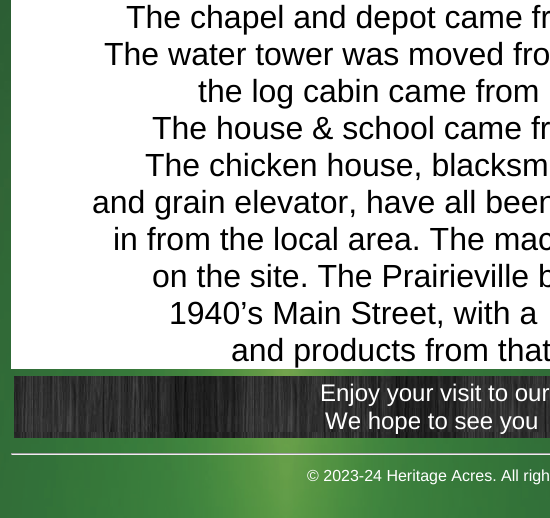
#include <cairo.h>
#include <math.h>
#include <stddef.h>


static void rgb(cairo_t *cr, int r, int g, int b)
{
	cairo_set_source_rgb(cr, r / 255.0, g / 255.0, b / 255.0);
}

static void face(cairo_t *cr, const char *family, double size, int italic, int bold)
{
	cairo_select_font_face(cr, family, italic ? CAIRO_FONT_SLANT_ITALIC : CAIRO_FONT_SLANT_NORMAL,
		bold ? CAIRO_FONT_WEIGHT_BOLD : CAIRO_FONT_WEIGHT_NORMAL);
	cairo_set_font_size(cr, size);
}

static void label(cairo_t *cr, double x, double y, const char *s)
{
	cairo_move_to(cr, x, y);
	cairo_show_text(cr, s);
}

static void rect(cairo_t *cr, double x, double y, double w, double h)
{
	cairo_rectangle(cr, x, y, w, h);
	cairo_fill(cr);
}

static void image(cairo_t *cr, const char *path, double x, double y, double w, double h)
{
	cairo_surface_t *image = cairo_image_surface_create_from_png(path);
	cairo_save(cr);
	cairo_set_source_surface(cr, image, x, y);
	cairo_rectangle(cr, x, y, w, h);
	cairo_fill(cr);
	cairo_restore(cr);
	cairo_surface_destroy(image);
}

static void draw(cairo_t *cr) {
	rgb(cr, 255, 255, 255);
	cairo_paint(cr);
	image(cr, "image0.png", 0, 0, 550, 518);
	rgb(cr, 255, 255, 255);
	rect(cr, 11, 0, 539, 369);
	face(cr, "Liberation Sans", 32, 0, 0);
	rgb(cr, 0, 0, 0);
	label(cr, 126, 28, "The chapel and depot came fr");
	label(cr, 104, 65, "The water tower was moved fro");
	label(cr, 198, 102, "the log cabin came from");
	label(cr, 152, 139, "The house & school came fr");
	label(cr, 145, 176, "The chicken house, blacksm");
	label(cr, 92, 213, "and grain elevator, have all been");
	label(cr, 113, 250, "in from the local area. The mac");
	label(cr, 152, 287, "on the site. The Prairieville b");
	label(cr, 169, 324, "1940’s Main Street, with a");
	label(cr, 231, 361, "and products from that");
	image(cr, "image1.png", 14, 376, 536, 62);
	face(cr, "Liberation Sans", 24, 0, 0);
	rgb(cr, 255, 255, 255);
	label(cr, 320, 401, "Enjoy your visit to our");
	label(cr, 325, 429, "We hope to see you");
	rgb(cr, 159, 159, 159);
	rect(cr, 11, 453, 539, 1);
	rgb(cr, 238, 238, 238);
	rect(cr, 11, 454, 539, 1);
	rgb(cr, 159, 159, 159);
	rect(cr, 11, 453, 1, 2);
	face(cr, "Liberation Sans", 16, 0, 0);
	rgb(cr, 255, 255, 255);
	label(cr, 307, 481, "© 2023-24 Heritage Acres. All righ");
}

int main(void) {
	cairo_surface_t *surface = cairo_image_surface_create(CAIRO_FORMAT_RGB24, 550, 518);
	cairo_t *cr = cairo_create(surface);
	cairo_font_options_t *options = cairo_font_options_create();
	cairo_font_options_set_hint_metrics(options, CAIRO_HINT_METRICS_OFF);
	cairo_font_options_set_hint_style(options, CAIRO_HINT_STYLE_NONE);
	cairo_set_font_options(cr, options);
	cairo_set_miter_limit(cr, 4);
	draw(cr);
	cairo_surface_write_to_png(surface, "render.png");
	cairo_font_options_destroy(options);
	cairo_destroy(cr);
	cairo_surface_destroy(surface);
	return 0;
}
